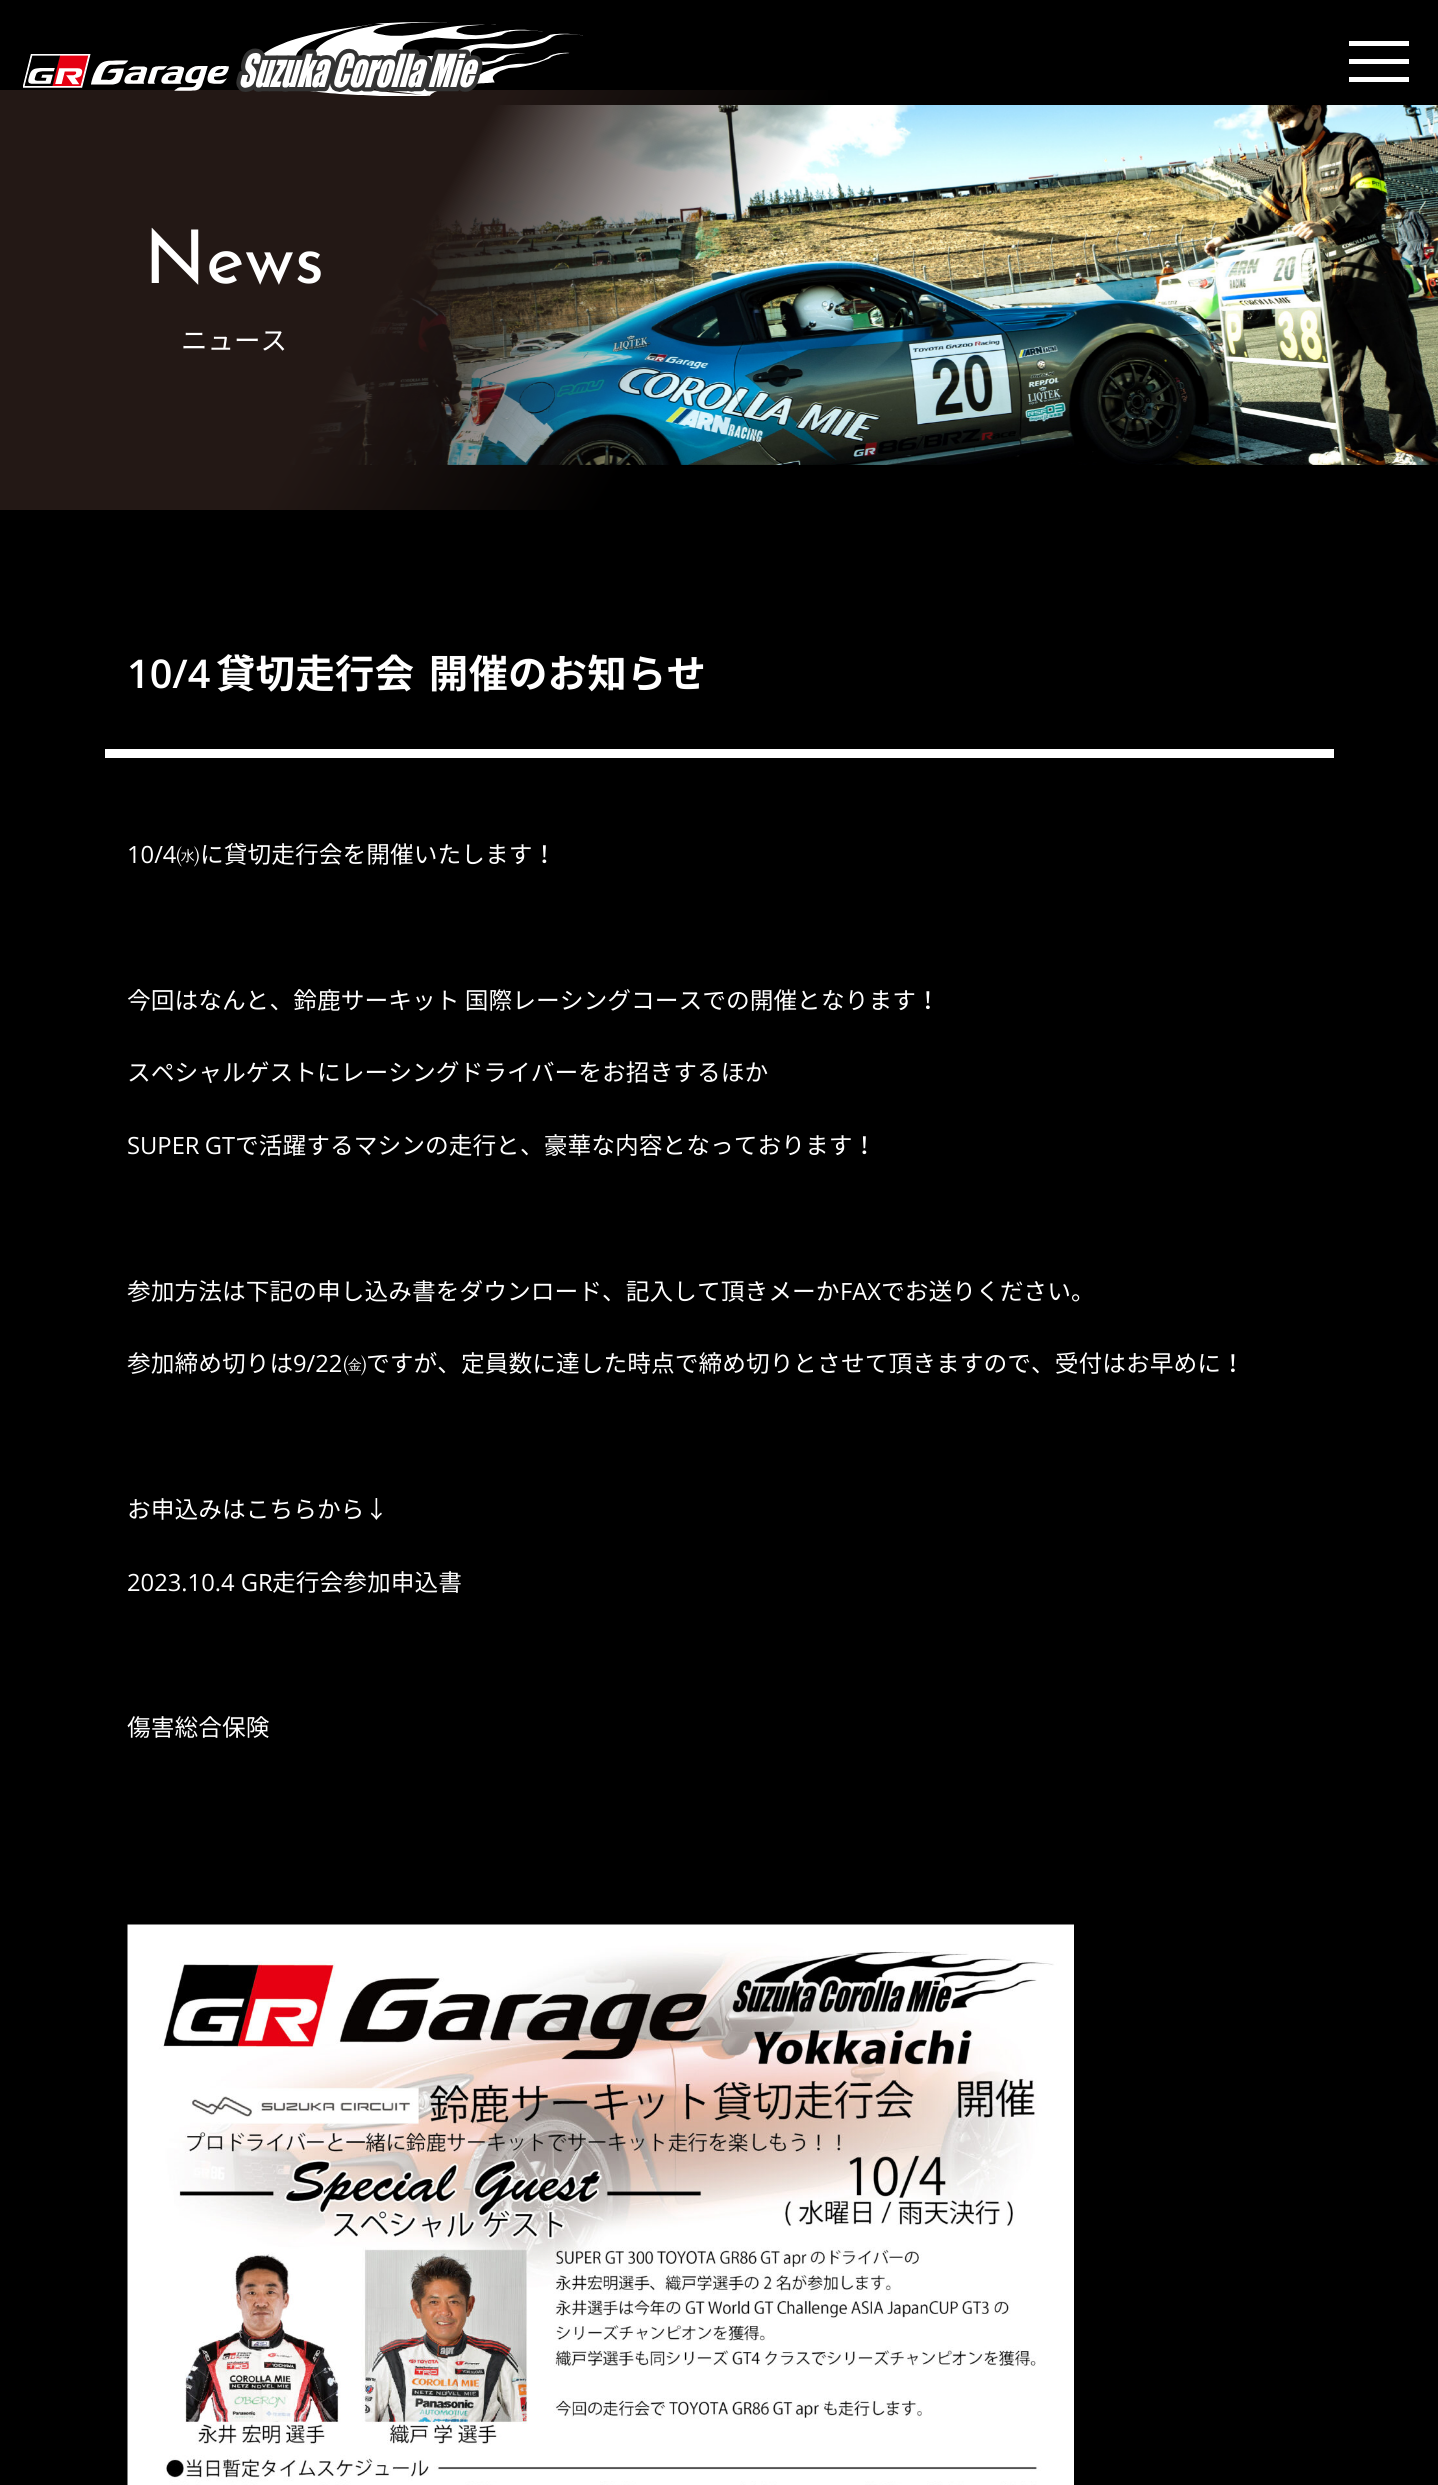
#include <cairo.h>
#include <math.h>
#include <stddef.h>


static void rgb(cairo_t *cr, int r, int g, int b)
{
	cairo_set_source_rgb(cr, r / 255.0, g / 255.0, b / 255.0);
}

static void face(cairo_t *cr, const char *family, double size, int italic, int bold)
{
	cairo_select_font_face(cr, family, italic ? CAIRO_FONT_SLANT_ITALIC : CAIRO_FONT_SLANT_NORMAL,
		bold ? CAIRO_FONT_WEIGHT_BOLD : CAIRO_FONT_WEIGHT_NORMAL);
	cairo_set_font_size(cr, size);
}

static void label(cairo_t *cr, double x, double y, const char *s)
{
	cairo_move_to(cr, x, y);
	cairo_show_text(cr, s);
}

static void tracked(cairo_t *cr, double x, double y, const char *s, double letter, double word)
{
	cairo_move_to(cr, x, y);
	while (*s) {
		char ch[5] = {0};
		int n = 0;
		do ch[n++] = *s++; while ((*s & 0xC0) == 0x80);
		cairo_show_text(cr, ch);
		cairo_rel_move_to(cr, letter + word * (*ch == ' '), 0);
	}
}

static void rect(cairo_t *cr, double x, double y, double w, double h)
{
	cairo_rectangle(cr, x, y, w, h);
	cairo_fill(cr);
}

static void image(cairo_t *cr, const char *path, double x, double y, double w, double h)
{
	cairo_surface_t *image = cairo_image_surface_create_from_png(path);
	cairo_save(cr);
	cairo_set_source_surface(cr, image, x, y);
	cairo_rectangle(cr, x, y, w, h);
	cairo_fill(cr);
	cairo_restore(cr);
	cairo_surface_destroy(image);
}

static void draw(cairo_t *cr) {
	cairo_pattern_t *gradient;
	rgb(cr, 0, 0, 0);
	cairo_paint(cr);
	image(cr, "image1.png", 290, 105, 1148, 360);
	gradient = cairo_pattern_create_linear(1350, 664, 89, -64);
	cairo_pattern_add_color_stop_rgba(gradient, 0.5, 0.137, 0.094, 0.082, 0);
	cairo_pattern_add_color_stop_rgba(gradient, 0.7, 0.137, 0.094, 0.082, 1);
	cairo_pattern_add_color_stop_rgba(gradient, 1, 0.137, 0.094, 0.082, 1);
	cairo_set_source(cr, gradient);
	cairo_pattern_destroy(gradient);
	rect(cr, 0, 90, 828, 420);
	image(cr, "image0.png", 23, 22, 560, 74);
	rgb(cr, 255, 255, 255);
	rect(cr, 1349, 59, 60, 5);
	rect(cr, 1349, 41, 60, 5);
	rect(cr, 1349, 77, 60, 5);
	face(cr, "Josefin Sans", 74, 0, 0);
	label(cr, 144, 283, "News");
	face(cr, "Noto Sans CJK JP", 26.5, 0, 0);
	label(cr, 181, 350, "ニュース");
	rect(cr, 105, 749, 1229, 9);
	face(cr, "Open Sans SemiBold", 39.6, 0, 0);
	label(cr, 127, 688, "10/4");
	face(cr, "Noto Sans Mono CJK JP", 39.6, 0, 1);
	tracked(cr, 216, 688, "貸切走行会 開催のお知らせ", 0, -5);
	face(cr, "Open Sans", 23.75, 0, 0);
	label(cr, 127, 863, "10/4");
	face(cr, "WenQuanYi Zen Hei Medium", 23.75, 0, 0);
	label(cr, 176, 863, "㈬");
	face(cr, "Noto Sans CJK JP", 23.75, 0, 0);
	label(cr, 200, 863, "に貸切走行会を開催いたします！");
	label(cr, 127, 1009, "今回はなんと、鈴鹿サーキット 国際レーシングコースでの開催となります！");
	label(cr, 127, 1081, "スペシャルゲストにレーシングドライバーをお招きするほか");
	face(cr, "Open Sans", 23.75, 0, 0);
	tracked(cr, 127, 1154, "SUPER GT", 0, -1);
	face(cr, "Noto Sans CJK JP", 23.75, 0, 0);
	label(cr, 235, 1154, "で活躍するマシンの走行と、豪華な内容となっております！");
	label(cr, 127, 1300, "参加方法は下記の申し込み書をダウンロード、記入して頂きメーか");
	face(cr, "Open Sans", 23.75, 0, 0);
	label(cr, 840, 1300, "FAX");
	face(cr, "Noto Sans CJK JP", 23.75, 0, 0);
	label(cr, 881, 1300, "でお送りください。");
	label(cr, 127, 1372, "参加締め切りは");
	face(cr, "Open Sans", 23.75, 0, 0);
	label(cr, 293, 1372, "9/22");
	face(cr, "WenQuanYi Zen Hei Medium", 23.75, 0, 0);
	label(cr, 343, 1372, "㈮");
	face(cr, "Noto Sans CJK JP", 23.75, 0, 0);
	label(cr, 366, 1372, "ですが、定員数に達した時点で締め切りとさせて頂きますので、受付はお早めに！");
	label(cr, 127, 1518, "お申込みはこちらから↓");
	face(cr, "Open Sans", 23.75, 0, 0);
	label(cr, 127, 1591, "2023.10.4 GR");
	face(cr, "Noto Sans CJK JP", 23.75, 0, 0);
	label(cr, 272, 1591, "走行会参加申込書");
	label(cr, 127, 1736, "傷害総合保険");
	image(cr, "image2.png", 127, 1924, 947, 561);
}

int main(void) {
	cairo_surface_t *surface = cairo_image_surface_create(CAIRO_FORMAT_RGB24, 1438, 2485);
	cairo_t *cr = cairo_create(surface);
	cairo_font_options_t *options = cairo_font_options_create();
	cairo_font_options_set_hint_metrics(options, CAIRO_HINT_METRICS_OFF);
	cairo_font_options_set_hint_style(options, CAIRO_HINT_STYLE_NONE);
	cairo_set_font_options(cr, options);
	cairo_set_miter_limit(cr, 4);
	draw(cr);
	cairo_surface_write_to_png(surface, "render.png");
	cairo_font_options_destroy(options);
	cairo_destroy(cr);
	cairo_surface_destroy(surface);
	return 0;
}
